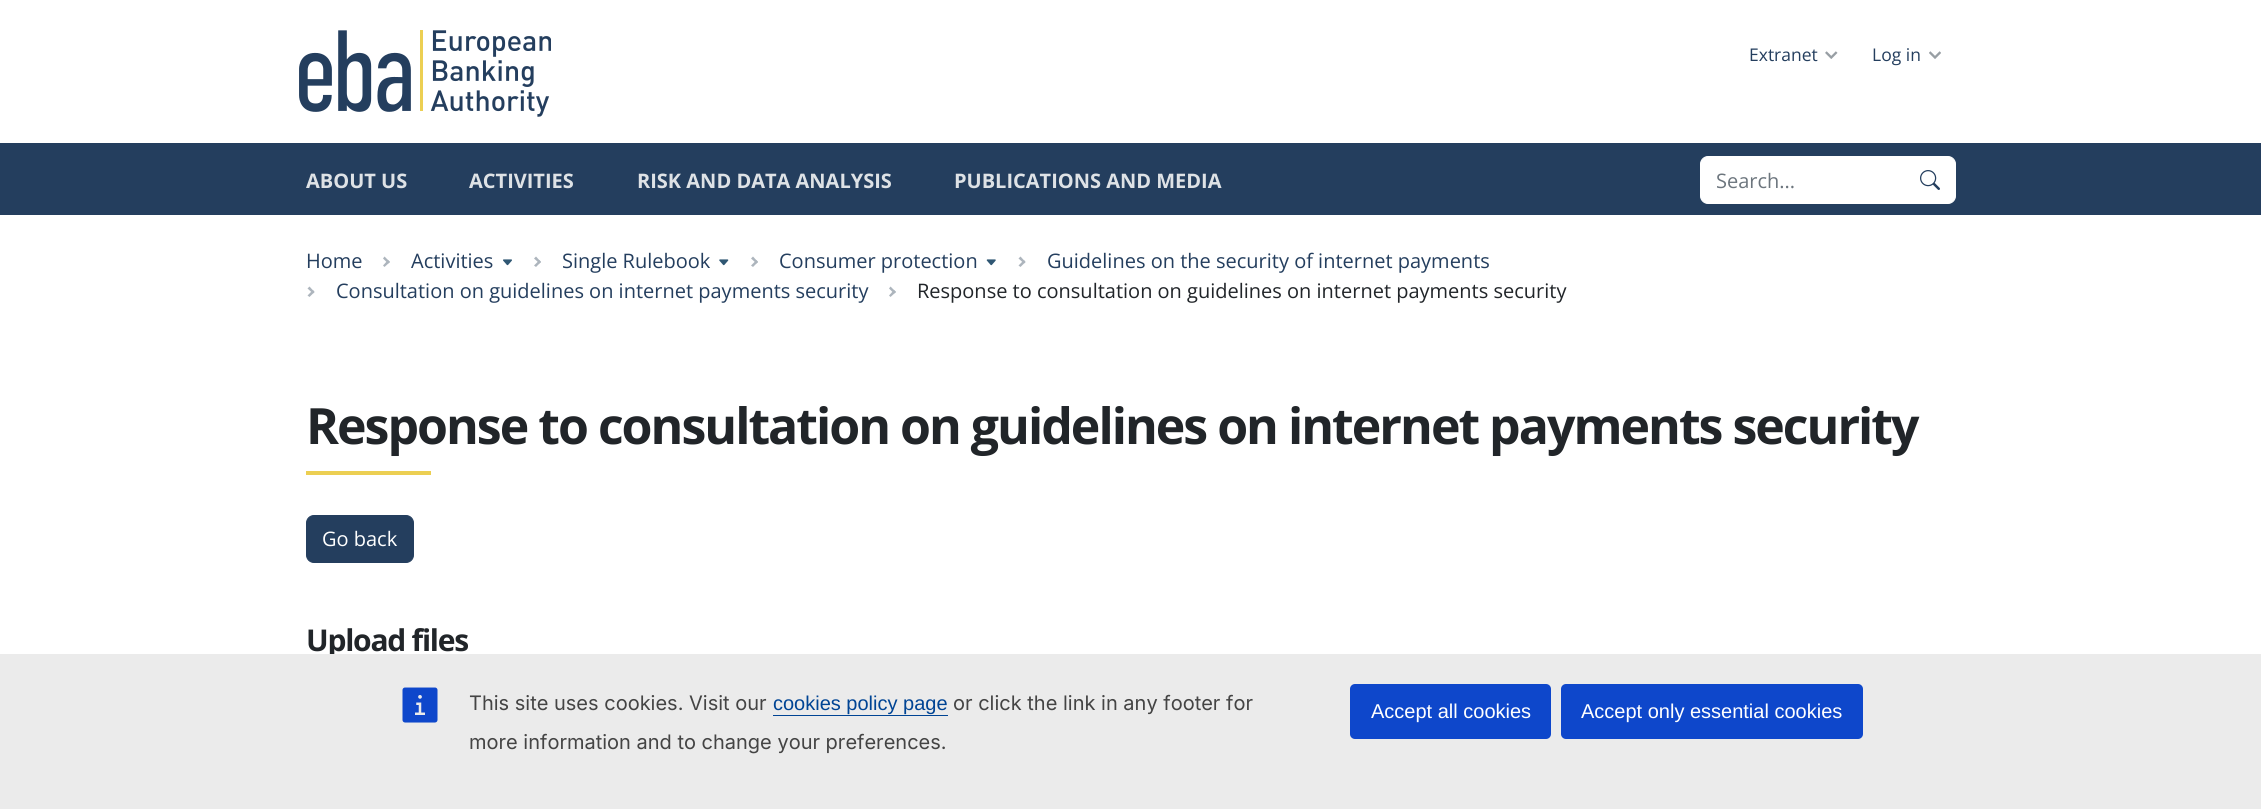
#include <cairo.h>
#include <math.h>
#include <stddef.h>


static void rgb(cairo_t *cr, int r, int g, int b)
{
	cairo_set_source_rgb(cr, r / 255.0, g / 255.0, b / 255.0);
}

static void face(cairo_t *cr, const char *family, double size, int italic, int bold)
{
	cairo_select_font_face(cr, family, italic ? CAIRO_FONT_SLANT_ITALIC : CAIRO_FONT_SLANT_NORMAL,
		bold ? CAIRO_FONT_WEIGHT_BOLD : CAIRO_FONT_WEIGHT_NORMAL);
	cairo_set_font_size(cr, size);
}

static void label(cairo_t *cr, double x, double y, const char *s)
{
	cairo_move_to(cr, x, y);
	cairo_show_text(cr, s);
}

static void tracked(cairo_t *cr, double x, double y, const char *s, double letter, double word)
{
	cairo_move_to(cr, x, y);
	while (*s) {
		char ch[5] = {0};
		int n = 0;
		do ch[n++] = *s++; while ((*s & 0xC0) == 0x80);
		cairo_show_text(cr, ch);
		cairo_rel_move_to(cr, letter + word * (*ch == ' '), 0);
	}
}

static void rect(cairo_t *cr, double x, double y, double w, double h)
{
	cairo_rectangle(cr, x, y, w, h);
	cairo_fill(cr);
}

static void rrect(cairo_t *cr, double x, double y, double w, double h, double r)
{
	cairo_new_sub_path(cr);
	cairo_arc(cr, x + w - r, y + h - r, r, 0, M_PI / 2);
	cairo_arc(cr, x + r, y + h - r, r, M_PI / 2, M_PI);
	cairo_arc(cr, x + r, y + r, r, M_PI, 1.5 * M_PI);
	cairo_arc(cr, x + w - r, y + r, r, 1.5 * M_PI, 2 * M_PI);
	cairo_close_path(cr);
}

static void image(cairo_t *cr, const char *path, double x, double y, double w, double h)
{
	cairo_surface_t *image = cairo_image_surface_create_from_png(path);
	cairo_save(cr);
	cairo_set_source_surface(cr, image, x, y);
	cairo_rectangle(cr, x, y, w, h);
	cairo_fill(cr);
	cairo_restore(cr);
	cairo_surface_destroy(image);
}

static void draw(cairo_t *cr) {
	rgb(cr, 255, 255, 255);
	cairo_paint(cr);
	rgb(cr, 36, 62, 94);
	rect(cr, 0, 143, 2261, 72);
	image(cr, "image0.png", 299, 30, 252, 87);
	face(cr, "Open Sans", 17.5, 0, 0);
	label(cr, 1749, 61, "Extranet");
	image(cr, "image1.png", 1825, 51, 13, 8);
	label(cr, 1872, 61, "Log in");
	image(cr, "image2.png", 1929, 51, 12, 8);
	face(cr, "Open Sans", 20, 0, 1);
	rgb(cr, 222, 226, 230);
	label(cr, 306, 188, "ABOUT US");
	label(cr, 469, 188, "ACTIVITIES");
	label(cr, 637, 188, "RISK AND DATA ANALYSIS");
	label(cr, 954, 188, "PUBLICATIONS AND MEDIA");
	rgb(cr, 255, 255, 255);
	cairo_new_path(cr);
	cairo_move_to(cr, 1708, 156.5);
	cairo_line_to(cr, 1904.5, 156.5);
	cairo_line_to(cr, 1904.5, 203.5);
	cairo_line_to(cr, 1708, 203.5);
	cairo_curve_to(cr, 1704, 203.5, 1700.5, 200, 1700.5, 196);
	cairo_line_to(cr, 1700.5, 164);
	cairo_curve_to(cr, 1700.5, 160, 1704, 156.5, 1708, 156.5);
	cairo_close_path(cr);
	cairo_fill_preserve(cr);
	cairo_set_line_width(cr, 1);
	cairo_stroke(cr);
	face(cr, "Open Sans", 20, 0, 0);
	rgb(cr, 108, 117, 125);
	label(cr, 1716, 188, "Search...");
	rgb(cr, 255, 255, 255);
	cairo_new_path(cr);
	cairo_move_to(cr, 1904.5, 156.5);
	cairo_line_to(cr, 1948, 156.5);
	cairo_curve_to(cr, 1952, 156.5, 1955.5, 160, 1955.5, 164);
	cairo_line_to(cr, 1955.5, 196);
	cairo_curve_to(cr, 1955.5, 200, 1952, 203.5, 1948, 203.5);
	cairo_line_to(cr, 1904.5, 203.5);
	cairo_close_path(cr);
	cairo_fill_preserve(cr);
	cairo_stroke(cr);
	image(cr, "image3.png", 1920, 170, 20, 20);
	rgb(cr, 36, 62, 94);
	label(cr, 306, 268, "Home");
	rgb(cr, 173, 181, 189);
	cairo_new_path(cr);
	cairo_move_to(cr, 384.5, 256.5);
	cairo_line_to(cr, 390, 262);
	cairo_line_to(cr, 388, 263.5);
	cairo_line_to(cr, 383, 258.5);
	cairo_close_path(cr);
	cairo_fill(cr);
	cairo_new_path(cr);
	cairo_move_to(cr, 388, 260);
	cairo_line_to(cr, 390, 262);
	cairo_line_to(cr, 384.5, 267);
	cairo_line_to(cr, 383, 265.5);
	cairo_close_path(cr);
	cairo_fill(cr);
	rgb(cr, 36, 62, 94);
	label(cr, 411, 268, "Activities");
	image(cr, "image4.png", 503, 259, 9, 7);
	rgb(cr, 173, 181, 189);
	cairo_new_path(cr);
	cairo_move_to(cr, 536, 256.5);
	cairo_line_to(cr, 541, 262);
	cairo_line_to(cr, 539.5, 263.5);
	cairo_line_to(cr, 534, 258.5);
	cairo_close_path(cr);
	cairo_fill(cr);
	cairo_new_path(cr);
	cairo_move_to(cr, 539.5, 260);
	cairo_line_to(cr, 541, 262);
	cairo_line_to(cr, 536, 267);
	cairo_line_to(cr, 534, 265.5);
	cairo_close_path(cr);
	cairo_fill(cr);
	rgb(cr, 36, 62, 94);
	label(cr, 562, 268, "Single Rulebook");
	image(cr, "image5.png", 719, 259, 10, 7);
	rgb(cr, 173, 181, 189);
	cairo_new_path(cr);
	cairo_move_to(cr, 753, 256.5);
	cairo_line_to(cr, 758, 262);
	cairo_line_to(cr, 756.5, 263.5);
	cairo_line_to(cr, 751, 258.5);
	cairo_close_path(cr);
	cairo_fill(cr);
	cairo_new_path(cr);
	cairo_move_to(cr, 756.5, 260);
	cairo_line_to(cr, 758, 262);
	cairo_line_to(cr, 753, 267);
	cairo_line_to(cr, 751, 265.5);
	cairo_close_path(cr);
	cairo_fill(cr);
	rgb(cr, 36, 62, 94);
	label(cr, 779, 268, "Consumer protection");
	image(cr, "image6.png", 986, 259, 10, 7);
	rgb(cr, 173, 181, 189);
	cairo_new_path(cr);
	cairo_move_to(cr, 1020.5, 256.5);
	cairo_line_to(cr, 1025.5, 262);
	cairo_line_to(cr, 1024, 263.5);
	cairo_line_to(cr, 1018.5, 258.5);
	cairo_close_path(cr);
	cairo_fill(cr);
	cairo_new_path(cr);
	cairo_move_to(cr, 1024, 260);
	cairo_line_to(cr, 1025.5, 262);
	cairo_line_to(cr, 1020.5, 267);
	cairo_line_to(cr, 1018.5, 265.5);
	cairo_close_path(cr);
	cairo_fill(cr);
	rgb(cr, 36, 62, 94);
	label(cr, 1047, 268, "Guidelines on the security of internet payments");
	rgb(cr, 173, 181, 189);
	cairo_new_path(cr);
	cairo_move_to(cr, 309.5, 286.5);
	cairo_line_to(cr, 314.5, 292);
	cairo_line_to(cr, 313, 293.5);
	cairo_line_to(cr, 307.5, 288.5);
	cairo_close_path(cr);
	cairo_fill(cr);
	cairo_new_path(cr);
	cairo_move_to(cr, 313, 290);
	cairo_line_to(cr, 314.5, 292);
	cairo_line_to(cr, 309.5, 297);
	cairo_line_to(cr, 307.5, 295.5);
	cairo_close_path(cr);
	cairo_fill(cr);
	rgb(cr, 36, 62, 94);
	label(cr, 336, 298, "Consultation on guidelines on internet payments security");
	rgb(cr, 173, 181, 189);
	cairo_new_path(cr);
	cairo_move_to(cr, 890.5, 286.5);
	cairo_line_to(cr, 896, 292);
	cairo_line_to(cr, 894, 293.5);
	cairo_line_to(cr, 889, 288.5);
	cairo_close_path(cr);
	cairo_fill(cr);
	cairo_new_path(cr);
	cairo_move_to(cr, 894, 290);
	cairo_line_to(cr, 896, 292);
	cairo_line_to(cr, 890.5, 297);
	cairo_line_to(cr, 889, 295.5);
	cairo_close_path(cr);
	cairo_fill(cr);
	rgb(cr, 33, 37, 41);
	label(cr, 917, 298, "Response to consultation on guidelines on internet payments security");
	face(cr, "Open Sans", 50, 0, 1);
	tracked(cr, 306, 444, "Response to consultation on guidelines on internet payments security", -2, 0);
	rgb(cr, 236, 207, 82);
	rect(cr, 306, 471, 125, 4);
	rgb(cr, 36, 62, 94);
	rrect(cr, 306.5, 515.5, 107, 47, 7.5);
	cairo_fill_preserve(cr);
	cairo_stroke(cr);
	face(cr, "Open Sans", 20, 0, 0);
	rgb(cr, 255, 255, 255);
	label(cr, 322, 546, "Go back");
	face(cr, "Open Sans", 30, 0, 1);
	rgb(cr, 33, 37, 41);
	tracked(cr, 306, 651, "Upload files", -1.25, 0);
	rgb(cr, 235, 235, 235);
	rect(cr, 0, 654, 2261, 155);
	image(cr, "image7.png", 402, 687, 36, 36);
	face(cr, "Inter", 20, 0, 0);
	rgb(cr, 68, 68, 68);
	label(cr, 469, 710, "This site uses cookies. Visit our");
	face(cr, "Liberation Sans", 20, 0, 0);
	rgb(cr, 0, 68, 148);
	label(cr, 773, 710, "cookies policy page");
	rect(cr, 773, 715, 175, 1);
	face(cr, "Inter", 20, 0, 0);
	rgb(cr, 68, 68, 68);
	label(cr, 953, 710, "or click the link in any footer for");
	label(cr, 469, 749, "more information and to change your preferences.");
	rgb(cr, 14, 71, 203);
	rrect(cr, 1350, 684, 201, 55, 5);
	cairo_fill(cr);
	face(cr, "Liberation Sans", 20, 0, 0);
	rgb(cr, 255, 255, 255);
	label(cr, 1371, 718, "Accept all cookies");
	rgb(cr, 14, 71, 203);
	rrect(cr, 1561, 684, 302, 55, 5);
	cairo_fill(cr);
	rgb(cr, 255, 255, 255);
	label(cr, 1581, 718, "Accept only essential cookies");
}

int main(void) {
	cairo_surface_t *surface = cairo_image_surface_create(CAIRO_FORMAT_RGB24, 2261, 809);
	cairo_t *cr = cairo_create(surface);
	cairo_font_options_t *options = cairo_font_options_create();
	cairo_font_options_set_hint_metrics(options, CAIRO_HINT_METRICS_OFF);
	cairo_font_options_set_hint_style(options, CAIRO_HINT_STYLE_NONE);
	cairo_set_font_options(cr, options);
	cairo_set_miter_limit(cr, 4);
	draw(cr);
	cairo_surface_write_to_png(surface, "render.png");
	cairo_font_options_destroy(options);
	cairo_destroy(cr);
	cairo_surface_destroy(surface);
	return 0;
}
